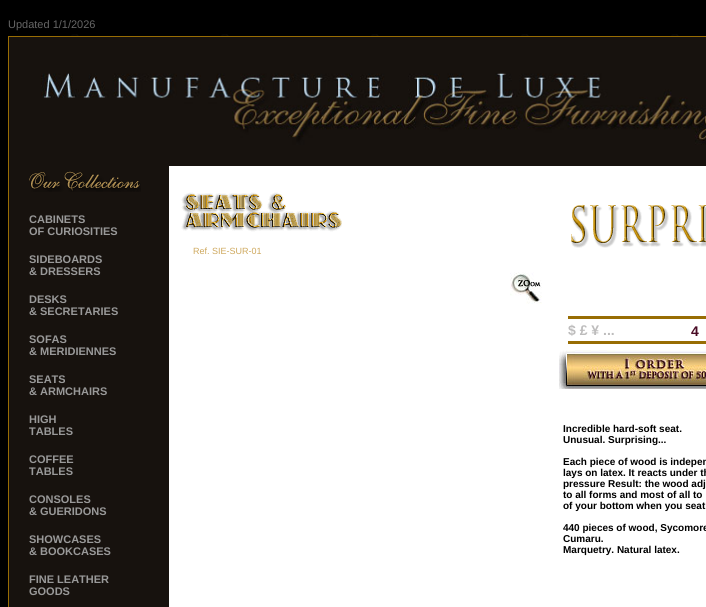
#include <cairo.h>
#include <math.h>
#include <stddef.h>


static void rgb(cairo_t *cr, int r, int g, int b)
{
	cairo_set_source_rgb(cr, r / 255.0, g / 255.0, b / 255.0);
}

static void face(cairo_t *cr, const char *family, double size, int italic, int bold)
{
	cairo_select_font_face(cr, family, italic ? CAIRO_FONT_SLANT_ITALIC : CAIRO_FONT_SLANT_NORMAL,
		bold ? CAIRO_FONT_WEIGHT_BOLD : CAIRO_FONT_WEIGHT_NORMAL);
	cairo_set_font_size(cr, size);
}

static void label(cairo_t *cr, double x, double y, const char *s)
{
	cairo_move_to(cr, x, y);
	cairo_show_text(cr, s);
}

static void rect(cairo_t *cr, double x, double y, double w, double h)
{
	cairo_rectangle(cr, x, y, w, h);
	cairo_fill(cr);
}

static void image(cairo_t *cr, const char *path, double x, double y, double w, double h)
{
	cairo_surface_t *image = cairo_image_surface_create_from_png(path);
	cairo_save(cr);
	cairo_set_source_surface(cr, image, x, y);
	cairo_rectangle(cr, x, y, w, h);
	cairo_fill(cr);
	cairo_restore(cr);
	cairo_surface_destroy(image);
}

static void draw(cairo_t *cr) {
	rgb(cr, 0, 0, 0);
	cairo_paint(cr);
	image(cr, "image0.png", 33, 34, 673, 2);
	face(cr, "Liberation Sans", 11, 0, 0);
	rgb(cr, 102, 102, 102);
	label(cr, 8, 28, "Updated 1/1/2026");
	rgb(cr, 23, 18, 14);
	rect(cr, 9, 37, 697, 129);
	rgb(cr, 152, 109, 4);
	rect(cr, 8, 36, 698, 1);
	rect(cr, 8, 36, 1, 571);
	image(cr, "image1.png", 41, 73, 665, 72);
	rgb(cr, 23, 18, 14);
	rect(cr, 9, 166, 160, 441);
	image(cr, "image2.png", 29, 171, 112, 21);
	face(cr, "Liberation Sans", 11, 0, 1);
	rgb(cr, 153, 153, 153);
	label(cr, 29, 223, "CABINETS");
	label(cr, 29, 235, "OF CURIOSITIES");
	label(cr, 29, 263, "SIDEBOARDS");
	label(cr, 29, 275, "& DRESSERS");
	label(cr, 29, 303, "DESKS");
	label(cr, 29, 315, "& SECRETARIES");
	label(cr, 29, 343, "SOFAS");
	label(cr, 29, 355, "& MERIDIENNES");
	label(cr, 29, 383, "SEATS");
	label(cr, 29, 395, "& ARMCHAIRS");
	label(cr, 29, 423, "HIGH");
	label(cr, 29, 435, "TABLES");
	label(cr, 29, 463, "COFFEE");
	label(cr, 29, 475, "TABLES");
	label(cr, 29, 503, "CONSOLES");
	label(cr, 29, 515, "& GUERIDONS");
	label(cr, 29, 543, "SHOWCASES");
	label(cr, 29, 555, "& BOOKCASES");
	label(cr, 29, 583, "FINE LEATHER");
	label(cr, 29, 595, "GOODS");
	rgb(cr, 255, 255, 255);
	rect(cr, 169, 166, 537, 441);
	image(cr, "image3.png", 181, 192, 161, 40);
	image(cr, "image4.png", 571, 204, 135, 44);
	face(cr, "Liberation Sans", 9, 0, 0);
	rgb(cr, 206, 168, 93);
	label(cr, 193, 254, "Ref. SIE-SUR-01");
	image(cr, "image5.png", 510, 272, 32, 32);
	rgb(cr, 152, 109, 4);
	rect(cr, 568, 316, 138, 3);
	rect(cr, 568, 341, 138, 3);
	face(cr, "Liberation Sans", 14, 0, 1);
	rgb(cr, 189, 188, 188);
	label(cr, 568, 335, "$ £ ¥ ...");
	rgb(cr, 73, 11, 37);
	label(cr, 691, 336, "4");
	image(cr, "image6.png", 559, 350, 147, 39);
	face(cr, "Liberation Sans", 10, 0, 1);
	rgb(cr, 0, 0, 0);
	label(cr, 563, 432, "Incredible hard-soft seat.");
	label(cr, 563, 443, "Unusual. Surprising...");
	label(cr, 563, 465, "Each piece of wood is indepen");
	label(cr, 563, 476, "lays on latex. It reacts under th");
	label(cr, 563, 487, "pressure Result: the wood adj");
	label(cr, 563, 498, "to all forms and most of all to");
	label(cr, 563, 509, "of your bottom when you seat");
	label(cr, 563, 531, "440 pieces of wood, Sycomore");
	label(cr, 563, 542, "Cumaru.");
	label(cr, 563, 553, "Marquetry. Natural latex.");
}

int main(void) {
	cairo_surface_t *surface = cairo_image_surface_create(CAIRO_FORMAT_RGB24, 706, 607);
	cairo_t *cr = cairo_create(surface);
	cairo_font_options_t *options = cairo_font_options_create();
	cairo_font_options_set_hint_metrics(options, CAIRO_HINT_METRICS_OFF);
	cairo_font_options_set_hint_style(options, CAIRO_HINT_STYLE_NONE);
	cairo_set_font_options(cr, options);
	cairo_set_miter_limit(cr, 4);
	draw(cr);
	cairo_surface_write_to_png(surface, "render.png");
	cairo_font_options_destroy(options);
	cairo_destroy(cr);
	cairo_surface_destroy(surface);
	return 0;
}
